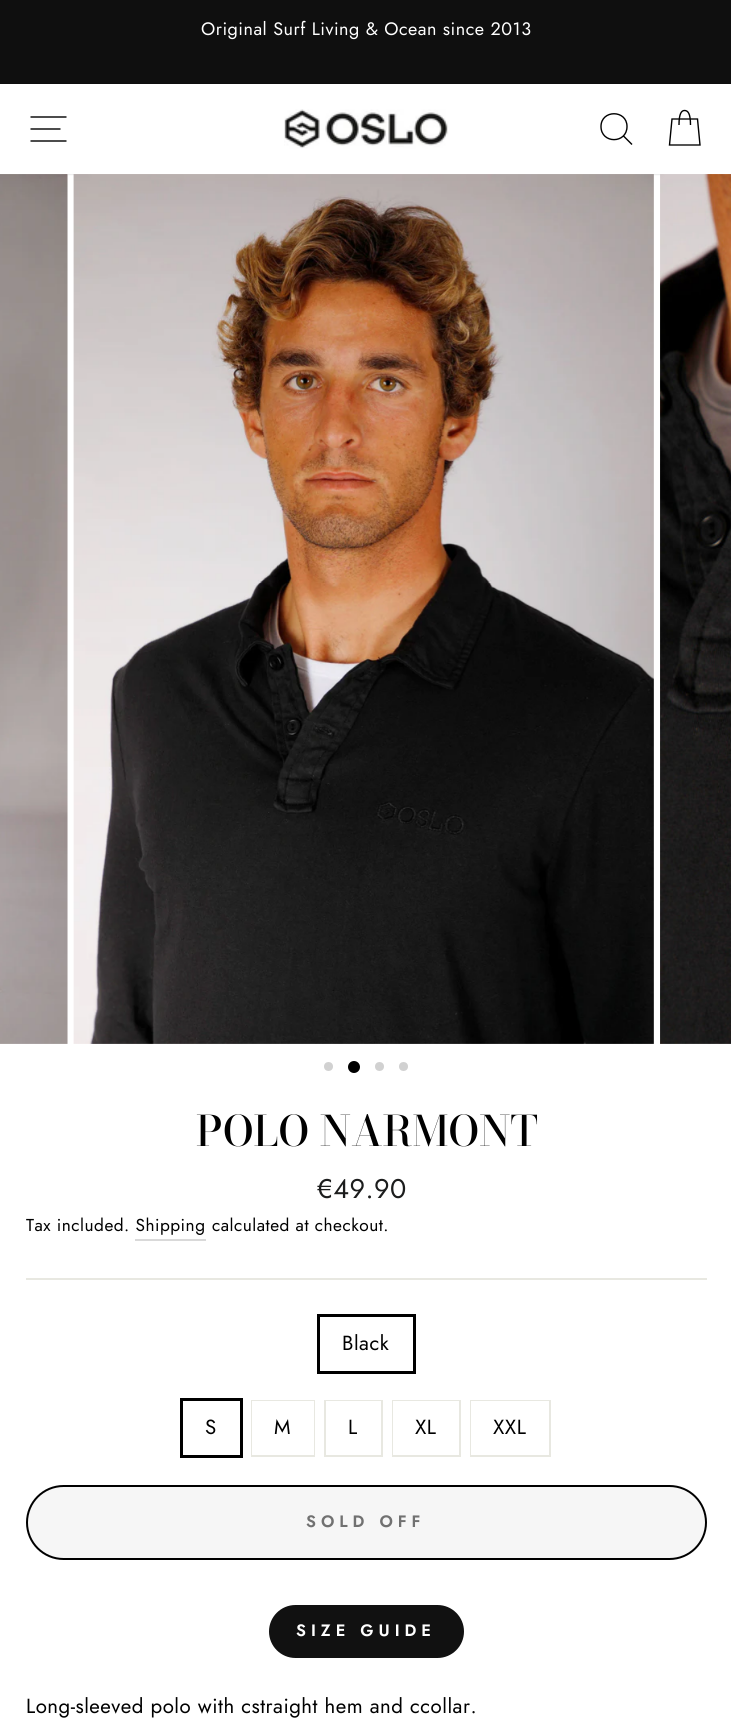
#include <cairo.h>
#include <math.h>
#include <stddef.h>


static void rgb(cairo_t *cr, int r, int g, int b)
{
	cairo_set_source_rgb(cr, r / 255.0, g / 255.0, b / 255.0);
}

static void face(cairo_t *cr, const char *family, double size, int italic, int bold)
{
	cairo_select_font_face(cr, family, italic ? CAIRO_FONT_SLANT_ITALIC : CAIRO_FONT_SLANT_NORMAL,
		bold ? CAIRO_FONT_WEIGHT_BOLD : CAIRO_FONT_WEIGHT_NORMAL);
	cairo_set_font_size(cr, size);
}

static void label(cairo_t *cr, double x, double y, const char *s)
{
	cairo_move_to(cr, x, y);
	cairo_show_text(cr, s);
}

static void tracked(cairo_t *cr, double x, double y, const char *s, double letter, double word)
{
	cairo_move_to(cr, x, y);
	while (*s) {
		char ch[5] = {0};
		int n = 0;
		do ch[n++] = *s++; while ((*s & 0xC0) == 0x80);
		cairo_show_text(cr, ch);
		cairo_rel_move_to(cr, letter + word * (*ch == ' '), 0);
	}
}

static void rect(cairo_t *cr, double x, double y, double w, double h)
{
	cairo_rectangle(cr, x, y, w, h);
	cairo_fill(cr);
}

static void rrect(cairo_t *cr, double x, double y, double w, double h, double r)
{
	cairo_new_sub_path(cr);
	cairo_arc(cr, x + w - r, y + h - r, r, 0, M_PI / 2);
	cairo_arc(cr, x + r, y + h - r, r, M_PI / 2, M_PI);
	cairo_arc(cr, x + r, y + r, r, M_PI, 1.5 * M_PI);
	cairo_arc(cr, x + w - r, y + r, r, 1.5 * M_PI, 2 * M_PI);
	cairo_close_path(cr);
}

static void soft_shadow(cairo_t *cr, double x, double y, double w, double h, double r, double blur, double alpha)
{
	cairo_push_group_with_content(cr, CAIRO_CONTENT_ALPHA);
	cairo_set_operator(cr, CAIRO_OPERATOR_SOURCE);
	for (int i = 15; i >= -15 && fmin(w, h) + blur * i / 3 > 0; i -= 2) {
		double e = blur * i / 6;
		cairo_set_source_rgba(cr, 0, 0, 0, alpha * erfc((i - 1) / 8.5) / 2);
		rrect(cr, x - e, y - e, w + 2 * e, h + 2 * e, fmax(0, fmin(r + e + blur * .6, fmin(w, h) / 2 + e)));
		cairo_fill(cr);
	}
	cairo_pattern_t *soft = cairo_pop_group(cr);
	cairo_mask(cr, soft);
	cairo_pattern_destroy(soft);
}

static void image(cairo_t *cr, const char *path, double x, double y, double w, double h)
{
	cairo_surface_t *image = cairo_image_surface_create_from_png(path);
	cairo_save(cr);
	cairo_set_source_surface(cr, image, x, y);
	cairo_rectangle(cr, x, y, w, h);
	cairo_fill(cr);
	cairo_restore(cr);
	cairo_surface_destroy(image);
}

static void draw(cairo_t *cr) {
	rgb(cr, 255, 255, 255);
	cairo_paint(cr);
	rgb(cr, 15, 15, 15);
	rect(cr, 0, 0, 731, 84);
	face(cr, "Jost", 18, 0, 0);
	rgb(cr, 255, 255, 255);
	tracked(cr, 201, 35, "Original Surf Living & Ocean since 2013", 0.5, 0);
	cairo_save(cr);
	cairo_set_fill_rule(cr, CAIRO_FILL_RULE_EVEN_ODD);
	cairo_new_path(cr);
	cairo_move_to(cr, 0, 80);
	cairo_line_to(cr, 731, 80);
	cairo_line_to(cr, 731, 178);
	cairo_line_to(cr, 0, 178);
	cairo_close_path(cr);
	cairo_move_to(cr, 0, 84);
	cairo_line_to(cr, 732, 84);
	cairo_line_to(cr, 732, 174);
	cairo_line_to(cr, 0, 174);
	cairo_close_path(cr);
	cairo_clip(cr);
	rgb(cr, 0, 0, 0);
	soft_shadow(cr, 0, 84, 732, 90, 0, 1, 0.2);
	cairo_restore(cr);
	cairo_new_path(cr);
	cairo_move_to(cr, 30.5, 117);
	cairo_line_to(cr, 66.5, 117);
	cairo_move_to(cr, 30.5, 129);
	cairo_line_to(cr, 60.5, 129);
	cairo_move_to(cr, 30.5, 141);
	cairo_line_to(cr, 66.5, 141);
	rgb(cr, 0, 0, 0);
	cairo_set_line_width(cr, 1.4);
	cairo_stroke(cr);
	image(cr, "image0.png", 284, 109, 165, 40);
	cairo_new_path(cr);
	cairo_move_to(cr, 627, 126.5);
	cairo_curve_to(cr, 627, 144, 601, 144, 601, 126.5);
	cairo_curve_to(cr, 601, 109.5, 627, 109.5, 627, 126.5);
	cairo_close_path(cr);
	cairo_move_to(cr, 632, 144.5);
	cairo_line_to(cr, 623.5, 136);
	cairo_stroke(cr);
	cairo_new_path(cr);
	cairo_move_to(cr, 679, 125);
	cairo_curve_to(cr, 679, 113.5, 681.5, 110.5, 684.5, 110.5);
	cairo_curve_to(cr, 688, 110.5, 690.5, 113.5, 690.5, 125);
	cairo_move_to(cr, 672, 119);
	cairo_line_to(cr, 697.5, 119);
	cairo_line_to(cr, 700, 145);
	cairo_line_to(cr, 669.5, 145);
	cairo_close_path(cr);
	cairo_stroke(cr);
	rgb(cr, 255, 255, 255);
	rect(cr, 0, 174, 68, 2);
	image(cr, "image1.png", 0, 174, 68, 870);
	image(cr, "image2.png", 73, 174, 581, 870);
	image(cr, "image3.png", 660, 174, 71, 870);
	rgb(cr, 209, 209, 209);
	cairo_arc(cr, 328.5, 1066.5, 4.5, 0, 2 * M_PI);
	cairo_fill(cr);
	rgb(cr, 0, 0, 0);
	cairo_arc(cr, 354, 1067, 6, 0, 2 * M_PI);
	cairo_fill(cr);
	rgb(cr, 209, 209, 209);
	cairo_arc(cr, 379.5, 1066.5, 4.5, 0, 2 * M_PI);
	cairo_fill(cr);
	cairo_arc(cr, 403.5, 1066.5, 4.5, 0, 2 * M_PI);
	cairo_fill(cr);
	face(cr, "Bodoni Moda Medium", 41.75, 0, 0);
	rgb(cr, 0, 0, 0);
	label(cr, 196, 1146, "POLO NARMONT");
	face(cr, "Jost", 27, 0, 0);
	rgb(cr, 28, 29, 29);
	tracked(cr, 317, 1198, "€49.90", 0.5, 0);
	face(cr, "Jost", 17.25, 0, 0);
	rgb(cr, 0, 0, 0);
	tracked(cr, 26, 1231, "Tax included. Shipping", 0.5, 0);
	tracked(cr, 212, 1231, "calculated at checkout.", 0.5, 0);
	rgb(cr, 217, 217, 217);
	rect(cr, 135, 1239, 71, 2);
	rgb(cr, 232, 232, 225);
	rect(cr, 26, 1278, 681, 2);
	cairo_rectangle(cr, 318.5, 1315.5, 96, 57);
	rgb(cr, 0, 0, 0);
	cairo_set_line_width(cr, 3);
	cairo_stroke(cr);
	face(cr, "Jost", 20.4, 0, 0);
	tracked(cr, 342, 1350, "Black", 0.5, 0);
	cairo_rectangle(cr, 181.5, 1399.5, 60, 57);
	cairo_stroke(cr);
	tracked(cr, 205, 1434, "S", 0.5, 0);
	cairo_rectangle(cr, 252, 1401, 62, 55);
	rgb(cr, 232, 232, 225);
	cairo_set_line_width(cr, 2);
	cairo_stroke(cr);
	rgb(cr, 255, 255, 255);
	rect(cr, 252, 1401, 62, 54);
	rgb(cr, 0, 0, 0);
	tracked(cr, 274, 1434, "M", 0.5, 0);
	cairo_rectangle(cr, 325, 1401, 57, 55);
	rgb(cr, 232, 232, 225);
	cairo_stroke(cr);
	rgb(cr, 255, 255, 255);
	rect(cr, 326, 1401, 55, 1);
	rgb(cr, 0, 0, 0);
	tracked(cr, 348, 1434, "L", 0.5, 0);
	cairo_rectangle(cr, 393, 1401, 67, 55);
	rgb(cr, 232, 232, 225);
	cairo_stroke(cr);
	rgb(cr, 255, 255, 255);
	rect(cr, 393, 1401, 66, 54);
	rgb(cr, 0, 0, 0);
	tracked(cr, 415, 1434, "XL", 0.5, 0);
	cairo_rectangle(cr, 471, 1401, 79, 55);
	rgb(cr, 232, 232, 225);
	cairo_stroke(cr);
	rgb(cr, 255, 255, 255);
	rect(cr, 471, 1401, 78, 54);
	rgb(cr, 0, 0, 0);
	tracked(cr, 493, 1434, "XXL", 0.5, 0);
	rgb(cr, 246, 246, 246);
	rrect(cr, 27, 1486, 679, 73, 36.5);
	cairo_fill_preserve(cr);
	rgb(cr, 0, 0, 0);
	cairo_stroke(cr);
	face(cr, "Jost SemiBold", 16.5, 0, 0);
	rgb(cr, 113, 113, 113);
	tracked(cr, 306, 1527, "SOLD OFF", 5, 0);
	rgb(cr, 17, 17, 17);
	rrect(cr, 269, 1605, 195, 53, 26.5);
	cairo_fill(cr);
	rgb(cr, 255, 255, 255);
	tracked(cr, 296, 1636, "SIZE GUIDE", 5, 0);
	face(cr, "Jost", 20.4, 0, 0);
	rgb(cr, 0, 0, 0);
	tracked(cr, 26, 1713, "Long-sleeved polo with cstraight hem and ccollar.", 0.5, 0);
}

int main(void) {
	cairo_surface_t *surface = cairo_image_surface_create(CAIRO_FORMAT_RGB24, 731, 1721);
	cairo_t *cr = cairo_create(surface);
	cairo_font_options_t *options = cairo_font_options_create();
	cairo_font_options_set_hint_metrics(options, CAIRO_HINT_METRICS_OFF);
	cairo_font_options_set_hint_style(options, CAIRO_HINT_STYLE_NONE);
	cairo_set_font_options(cr, options);
	cairo_set_miter_limit(cr, 4);
	draw(cr);
	cairo_surface_write_to_png(surface, "render.png");
	cairo_font_options_destroy(options);
	cairo_destroy(cr);
	cairo_surface_destroy(surface);
	return 0;
}
